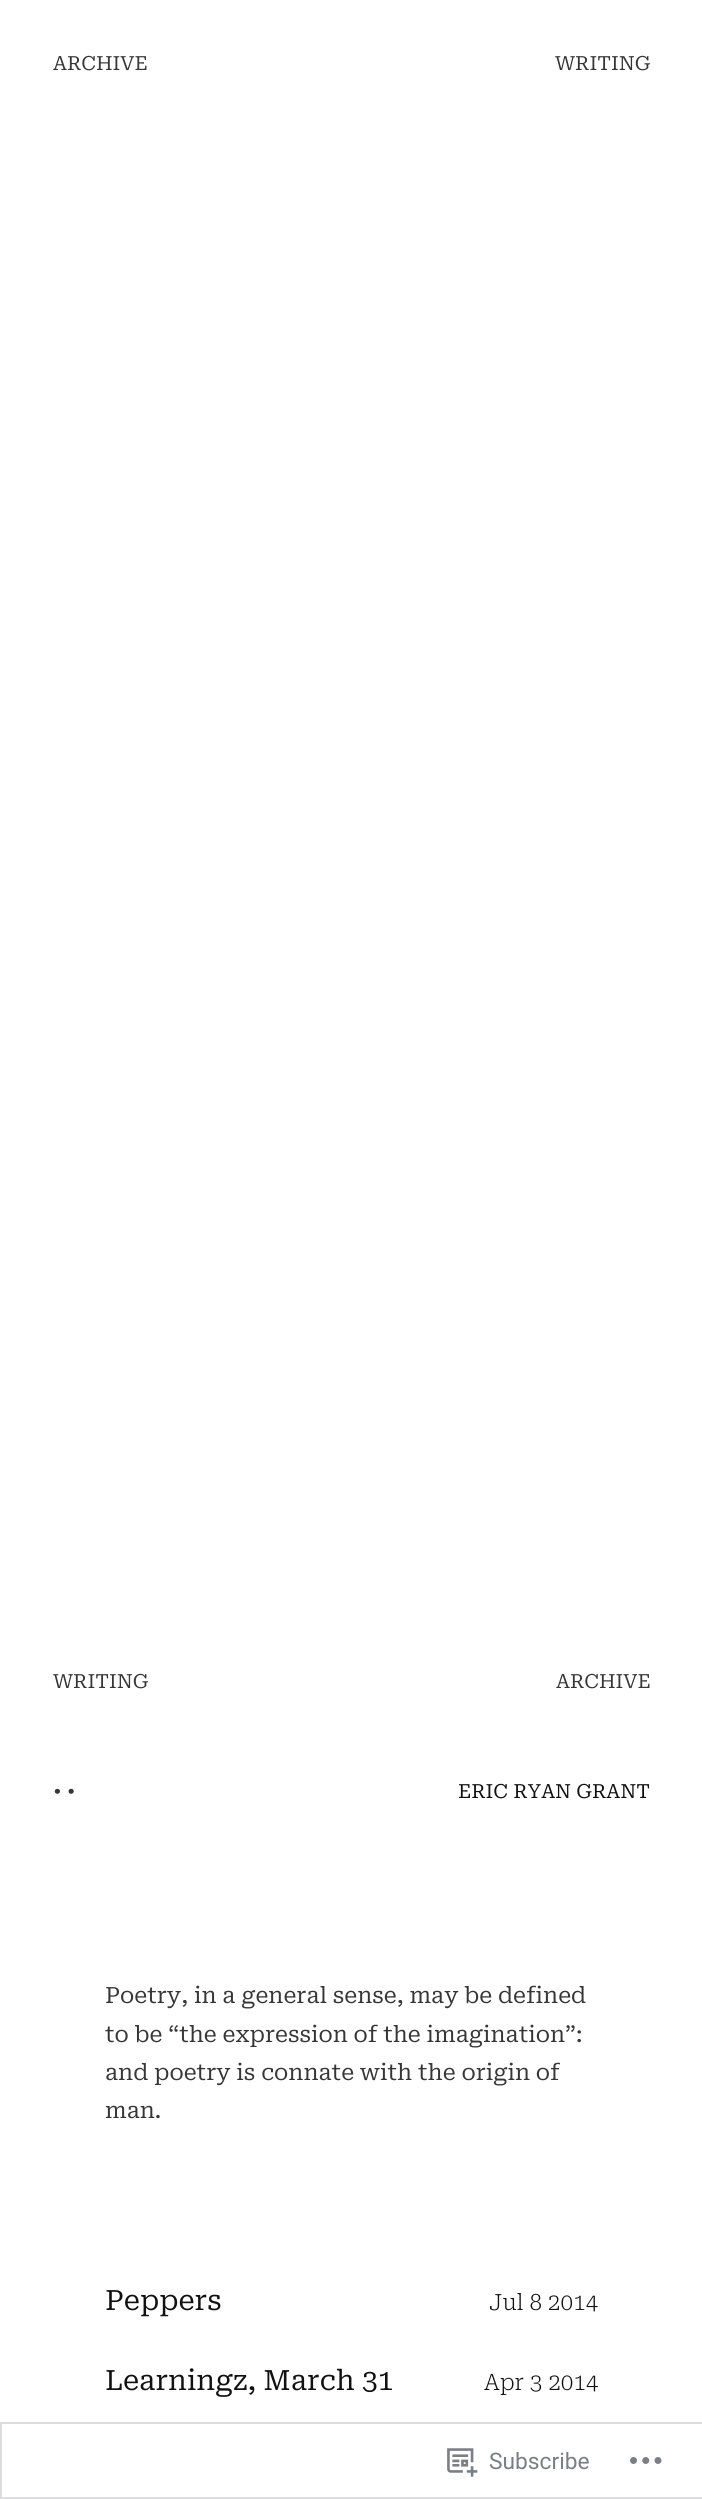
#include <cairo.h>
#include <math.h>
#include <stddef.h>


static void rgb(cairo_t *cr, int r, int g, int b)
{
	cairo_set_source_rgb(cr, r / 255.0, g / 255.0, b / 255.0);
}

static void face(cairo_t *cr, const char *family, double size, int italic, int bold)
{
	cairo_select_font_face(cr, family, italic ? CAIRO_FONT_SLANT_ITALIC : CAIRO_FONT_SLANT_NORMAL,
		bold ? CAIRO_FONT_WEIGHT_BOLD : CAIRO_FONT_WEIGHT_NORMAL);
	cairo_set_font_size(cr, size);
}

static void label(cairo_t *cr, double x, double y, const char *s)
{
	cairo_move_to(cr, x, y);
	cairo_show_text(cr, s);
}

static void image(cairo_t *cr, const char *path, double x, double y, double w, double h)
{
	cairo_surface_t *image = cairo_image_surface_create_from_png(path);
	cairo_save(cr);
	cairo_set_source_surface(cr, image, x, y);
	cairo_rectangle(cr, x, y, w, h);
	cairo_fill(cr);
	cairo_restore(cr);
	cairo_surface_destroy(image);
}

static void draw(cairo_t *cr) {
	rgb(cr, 255, 255, 255);
	cairo_paint(cr);
	face(cr, "Roboto Serif", 19.5, 0, 0);
	rgb(cr, 54, 54, 54);
	label(cr, 53, 70, "ARCHIVE");
	label(cr, 555, 70, "WRITING");
	label(cr, 53, 1688, "WRITING");
	label(cr, 556, 1688, "ARCHIVE");
	face(cr, "Roboto Serif ExtraLight", 19.5, 0, 0);
	label(cr, 53, 1798, "• •");
	face(cr, "Roboto Serif", 19.5, 0, 0);
	rgb(cr, 17, 17, 17);
	label(cr, 458, 1798, "ERIC RYAN GRANT");
	face(cr, "Roboto Serif", 22.4, 0, 0);
	rgb(cr, 54, 54, 54);
	label(cr, 105, 2003, "Poetry, in a general sense, may be defined");
	label(cr, 105, 2042, "to be “the expression of the imagination”:");
	label(cr, 105, 2080, "and poetry is connate with the origin of");
	label(cr, 105, 2118, "man.");
	face(cr, "Roboto Serif", 28, 0, 0);
	rgb(cr, 17, 17, 17);
	label(cr, 105, 2310, "Peppers");
	face(cr, "Roboto Serif ExtraLight", 22.4, 0, 0);
	label(cr, 489, 2310, "Jul 8 2014");
	face(cr, "Roboto Serif", 28, 0, 0);
	label(cr, 105, 2390, "Learningz, March 31");
	face(cr, "Roboto Serif ExtraLight", 22.4, 0, 0);
	label(cr, 484, 2390, "Apr 3 2014");
	cairo_rectangle(cr, 1, 2423, 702, 75);
	cairo_set_source_rgba(cr, 0.863, 0.863, 0.871, 0.98);
	cairo_stroke(cr);
	image(cr, "image0.png", 447, 2448, 31, 29);
	face(cr, "Roboto", 22.75, 0, 0);
	rgb(cr, 123, 127, 132);
	label(cr, 489, 2469, "Subscribe");
	image(cr, "image1.png", 630, 2457, 32, 7);
}

int main(void) {
	cairo_surface_t *surface = cairo_image_surface_create(CAIRO_FORMAT_RGB24, 702, 2499);
	cairo_t *cr = cairo_create(surface);
	cairo_font_options_t *options = cairo_font_options_create();
	cairo_font_options_set_hint_metrics(options, CAIRO_HINT_METRICS_OFF);
	cairo_font_options_set_hint_style(options, CAIRO_HINT_STYLE_NONE);
	cairo_set_font_options(cr, options);
	cairo_set_miter_limit(cr, 4);
	draw(cr);
	cairo_surface_write_to_png(surface, "render.png");
	cairo_font_options_destroy(options);
	cairo_destroy(cr);
	cairo_surface_destroy(surface);
	return 0;
}
